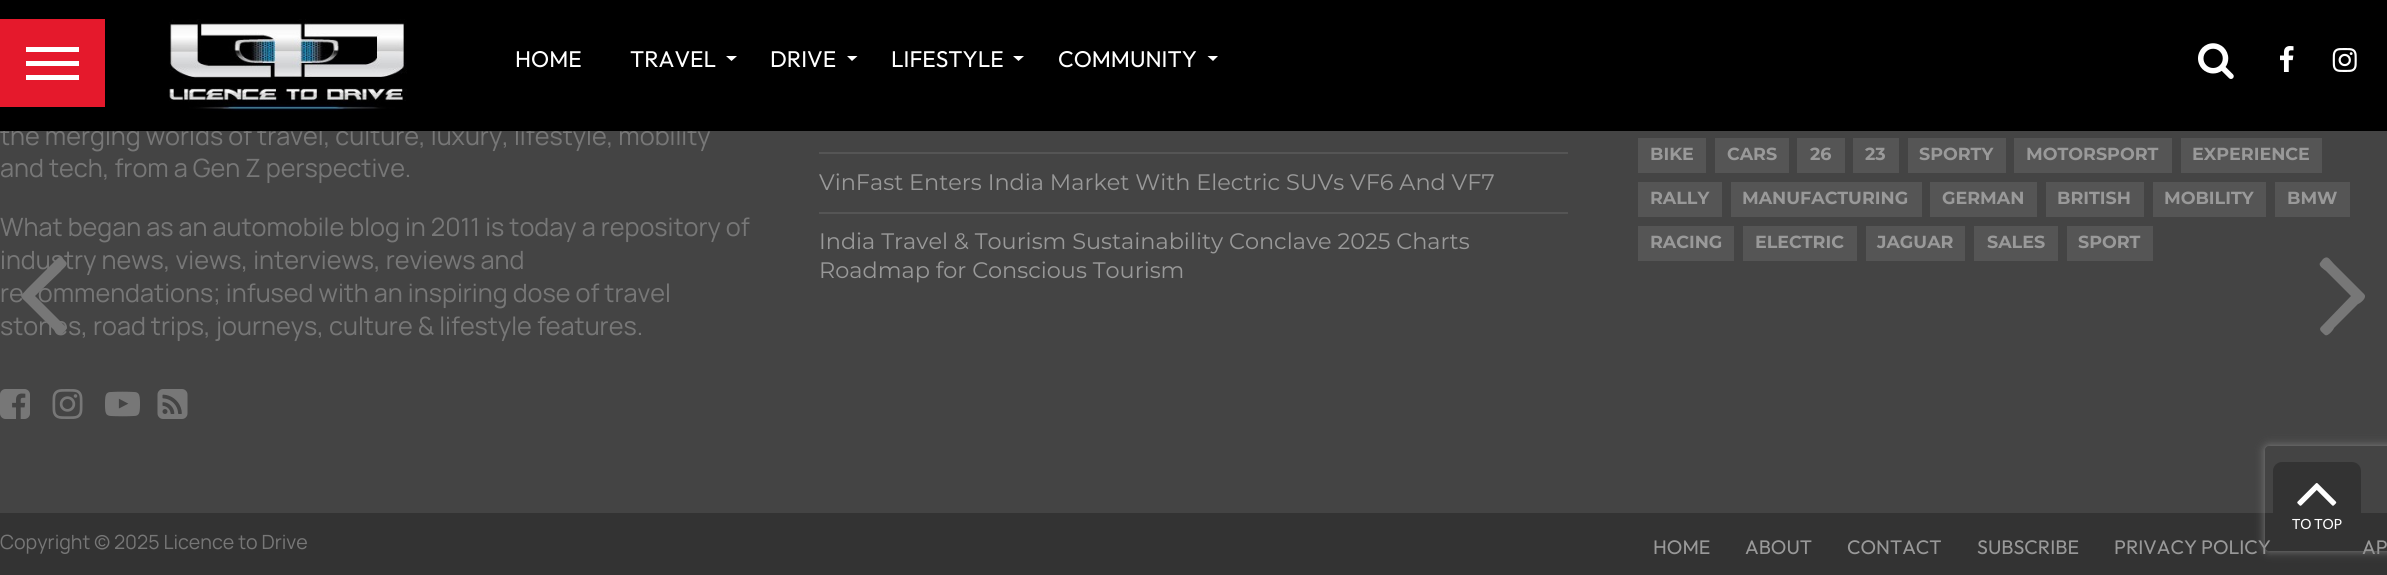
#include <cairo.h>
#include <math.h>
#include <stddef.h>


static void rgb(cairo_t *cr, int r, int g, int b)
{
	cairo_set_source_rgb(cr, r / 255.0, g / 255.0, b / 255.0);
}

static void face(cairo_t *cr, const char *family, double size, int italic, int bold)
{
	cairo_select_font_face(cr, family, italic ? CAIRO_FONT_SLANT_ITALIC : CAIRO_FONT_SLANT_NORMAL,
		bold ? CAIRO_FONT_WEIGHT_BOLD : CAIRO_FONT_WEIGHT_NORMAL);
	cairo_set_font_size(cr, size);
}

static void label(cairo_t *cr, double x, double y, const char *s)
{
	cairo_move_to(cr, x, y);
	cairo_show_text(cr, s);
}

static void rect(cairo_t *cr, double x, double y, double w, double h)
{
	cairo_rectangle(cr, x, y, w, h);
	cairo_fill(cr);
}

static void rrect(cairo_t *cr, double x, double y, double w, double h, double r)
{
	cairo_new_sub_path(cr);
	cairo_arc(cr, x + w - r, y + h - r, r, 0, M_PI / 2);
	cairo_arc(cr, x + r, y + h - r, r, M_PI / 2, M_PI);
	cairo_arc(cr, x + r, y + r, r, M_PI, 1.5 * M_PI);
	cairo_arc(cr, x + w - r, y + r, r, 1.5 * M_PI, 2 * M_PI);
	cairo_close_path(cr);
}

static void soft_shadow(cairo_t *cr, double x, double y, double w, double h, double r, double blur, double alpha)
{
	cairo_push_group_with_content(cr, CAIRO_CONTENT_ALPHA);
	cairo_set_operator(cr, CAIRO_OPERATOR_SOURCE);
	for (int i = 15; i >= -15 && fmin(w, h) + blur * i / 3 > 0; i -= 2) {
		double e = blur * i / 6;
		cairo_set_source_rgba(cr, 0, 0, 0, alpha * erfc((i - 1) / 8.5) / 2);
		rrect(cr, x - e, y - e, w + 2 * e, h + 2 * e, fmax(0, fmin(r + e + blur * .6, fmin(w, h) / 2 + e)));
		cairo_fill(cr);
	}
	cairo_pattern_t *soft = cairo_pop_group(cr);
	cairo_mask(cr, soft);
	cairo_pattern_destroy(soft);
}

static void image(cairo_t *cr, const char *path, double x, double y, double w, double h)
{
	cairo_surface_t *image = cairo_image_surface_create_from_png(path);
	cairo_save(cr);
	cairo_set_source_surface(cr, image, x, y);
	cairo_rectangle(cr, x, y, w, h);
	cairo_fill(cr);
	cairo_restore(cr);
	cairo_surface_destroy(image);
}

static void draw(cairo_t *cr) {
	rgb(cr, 68, 68, 68);
	cairo_paint(cr);
	face(cr, "Manrope", 25.2, 0, 0);
	rgb(cr, 119, 119, 119);
	label(cr, 0, 145, "the merging worlds of travel, culture, luxury, lifestyle, mobility");
	rgb(cr, 0, 0, 0);
	rect(cr, 0, 0, 2387, 131);
	rgb(cr, 229, 25, 44);
	rect(cr, 0, 19, 105, 88);
	rgb(cr, 255, 255, 255);
	rect(cr, 26, 47, 53, 5);
	rect(cr, 26, 61, 53, 5);
	rect(cr, 26, 75, 53, 5);
	image(cr, "image0.png", 169, 19, 238, 92);
	face(cr, "Outfit", 22.75, 0, 0);
	label(cr, 515, 67, "HOME");
	label(cr, 630, 67, "TRAVEL");
	cairo_new_path(cr);
	cairo_move_to(cr, 726, 56);
	cairo_line_to(cr, 737, 56);
	cairo_line_to(cr, 731.5, 61);
	cairo_close_path(cr);
	cairo_fill(cr);
	label(cr, 770, 67, "DRIVE");
	cairo_new_path(cr);
	cairo_move_to(cr, 847, 56);
	cairo_line_to(cr, 857.5, 56);
	cairo_line_to(cr, 852, 61);
	cairo_close_path(cr);
	cairo_fill(cr);
	label(cr, 891, 67, "LIFESTYLE");
	cairo_new_path(cr);
	cairo_move_to(cr, 1013, 56);
	cairo_line_to(cr, 1024, 56);
	cairo_line_to(cr, 1018.5, 61);
	cairo_close_path(cr);
	cairo_fill(cr);
	label(cr, 1058, 67, "COMMUNITY");
	cairo_new_path(cr);
	cairo_move_to(cr, 1207.5, 56);
	cairo_line_to(cr, 1218, 56);
	cairo_line_to(cr, 1213, 61);
	cairo_close_path(cr);
	cairo_fill(cr);
	image(cr, "image1.png", 2198, 43, 36, 36);
	image(cr, "image2.png", 2280, 46, 14, 26);
	image(cr, "image3.png", 2332, 48, 25, 24);
	face(cr, "Manrope", 25.2, 0, 0);
	rgb(cr, 119, 119, 119);
	label(cr, 0, 177, "and tech, from a Gen Z perspective.");
	label(cr, 0, 236, "What began as an automobile blog in 2011 is today a repository of");
	label(cr, 0, 269, "industry news, views, interviews, reviews and");
	label(cr, 0, 302, "recommendations; infused with an inspiring dose of travel");
	label(cr, 0, 335, "stories, road trips, journeys, culture & lifestyle features.");
	image(cr, "image4.png", 0, 389, 30, 30);
	image(cr, "image5.png", 52, 389, 31, 30);
	image(cr, "image6.png", 105, 391, 35, 26);
	image(cr, "image7.png", 157, 389, 31, 30);
	rgb(cr, 85, 85, 85);
	rect(cr, 819, 152, 749, 2);
	face(cr, "Montserrat", 22.4, 0, 0);
	rgb(cr, 153, 153, 153);
	label(cr, 819, 190, "VinFast Enters India Market With Electric SUVs VF6 And VF7");
	rgb(cr, 85, 85, 85);
	rect(cr, 819, 212, 749, 2);
	rgb(cr, 153, 153, 153);
	label(cr, 819, 249, "India Travel & Tourism Sustainability Conclave 2025 Charts");
	label(cr, 819, 278, "Roadmap for Conscious Tourism");
	rgb(cr, 85, 85, 85);
	rect(cr, 1638, 138, 68, 35);
	face(cr, "Montserrat", 17.5, 0, 1);
	rgb(cr, 153, 153, 153);
	label(cr, 1650, 160, "BIKE");
	rgb(cr, 85, 85, 85);
	rect(cr, 1715, 138, 74, 35);
	rgb(cr, 153, 153, 153);
	label(cr, 1727, 160, "CARS");
	rgb(cr, 85, 85, 85);
	rect(cr, 1797, 138, 48, 35);
	rgb(cr, 153, 153, 153);
	label(cr, 1810, 160, "26");
	rgb(cr, 85, 85, 85);
	rect(cr, 1853, 138, 46, 35);
	rgb(cr, 153, 153, 153);
	label(cr, 1865, 160, "23");
	rgb(cr, 85, 85, 85);
	rect(cr, 1908, 138, 98, 35);
	rgb(cr, 153, 153, 153);
	label(cr, 1919, 160, "SPORTY");
	rgb(cr, 85, 85, 85);
	rect(cr, 2014, 138, 158, 35);
	rgb(cr, 153, 153, 153);
	label(cr, 2026, 160, "MOTORSPORT");
	rgb(cr, 85, 85, 85);
	rect(cr, 2181, 138, 141, 35);
	rgb(cr, 153, 153, 153);
	label(cr, 2192, 160, "EXPERIENCE");
	rgb(cr, 85, 85, 85);
	rect(cr, 1638, 182, 84, 35);
	rgb(cr, 153, 153, 153);
	label(cr, 1650, 204, "RALLY");
	rgb(cr, 85, 85, 85);
	rect(cr, 1731, 182, 191, 35);
	rgb(cr, 153, 153, 153);
	label(cr, 1742, 204, "MANUFACTURING");
	rgb(cr, 85, 85, 85);
	rect(cr, 1930, 182, 107, 35);
	rgb(cr, 153, 153, 153);
	label(cr, 1942, 204, "GERMAN");
	rgb(cr, 85, 85, 85);
	rect(cr, 2046, 182, 98, 35);
	rgb(cr, 153, 153, 153);
	label(cr, 2057, 204, "BRITISH");
	rgb(cr, 85, 85, 85);
	rect(cr, 2153, 182, 113, 35);
	rgb(cr, 153, 153, 153);
	label(cr, 2164, 204, "MOBILITY");
	rgb(cr, 85, 85, 85);
	rect(cr, 2275, 182, 75, 35);
	rgb(cr, 153, 153, 153);
	label(cr, 2287, 204, "BMW");
	rgb(cr, 85, 85, 85);
	rect(cr, 1638, 226, 96, 35);
	rgb(cr, 153, 153, 153);
	label(cr, 1650, 248, "RACING");
	rgb(cr, 85, 85, 85);
	rect(cr, 1743, 226, 114, 35);
	rgb(cr, 153, 153, 153);
	label(cr, 1755, 248, "ELECTRIC");
	rgb(cr, 85, 85, 85);
	rect(cr, 1866, 226, 99, 35);
	rgb(cr, 153, 153, 153);
	label(cr, 1877, 248, "JAGUAR");
	rgb(cr, 85, 85, 85);
	rect(cr, 1974, 226, 84, 35);
	rgb(cr, 153, 153, 153);
	label(cr, 1987, 248, "SALES");
	rgb(cr, 85, 85, 85);
	rect(cr, 2067, 226, 86, 35);
	rgb(cr, 153, 153, 153);
	label(cr, 2078, 248, "SPORT");
	rgb(cr, 51, 51, 51);
	rect(cr, 0, 513, 2387, 62);
	face(cr, "Manrope", 19.6, 0, 0);
	rgb(cr, 119, 119, 119);
	label(cr, 0, 549, "Copyright © 2025 Licence to Drive");
	face(cr, "Outfit", 19.6, 0, 0);
	rgb(cr, 153, 153, 153);
	label(cr, 1653, 554, "HOME");
	label(cr, 1745, 554, "ABOUT");
	label(cr, 1847, 554, "CONTACT");
	label(cr, 1977, 554, "SUBSCRIBE");
	label(cr, 2114, 554, "PRIVACY POLICY");
	label(cr, 2362, 554, "AP");
	rgb(cr, 119, 119, 119);
	cairo_new_path(cr);
	cairo_move_to(cr, 66, 262);
	cairo_curve_to(cr, 69, 265, 61, 270, 61, 271);
	cairo_line_to(cr, 35, 296);
	cairo_line_to(cr, 66, 327);
	cairo_curve_to(cr, 68, 329, 64, 332, 63, 333);
	cairo_curve_to(cr, 62, 335, 60, 336, 58, 334);
	cairo_line_to(cr, 28, 304);
	cairo_curve_to(cr, 19, 295, 19, 298, 28, 288);
	cairo_line_to(cr, 58, 258);
	cairo_curve_to(cr, 61, 255, 64, 260, 66, 262);
	cairo_close_path(cr);
	cairo_fill(cr);
	cairo_new_path(cr);
	cairo_move_to(cr, 2364, 294);
	cairo_curve_to(cr, 2368, 298, 2359, 304, 2358, 304);
	cairo_line_to(cr, 2334, 328);
	cairo_curve_to(cr, 2334, 329, 2328, 337, 2325, 335);
	cairo_curve_to(cr, 2323, 333, 2318, 330, 2321, 327);
	cairo_line_to(cr, 2351, 296);
	cairo_line_to(cr, 2326, 271);
	cairo_curve_to(cr, 2325, 270, 2318, 266, 2320, 263);
	cairo_line_to(cr, 2323, 259);
	cairo_curve_to(cr, 2328, 255, 2329, 259, 2334, 264);
	cairo_close_path(cr);
	cairo_fill(cr);
	rgb(cr, 51, 51, 51);
	rrect(cr, 2273, 462, 88, 88, 9);
	cairo_fill(cr);
	image(cr, "image8.png", 2297, 483, 40, 23);
	cairo_save(cr);
	cairo_set_fill_rule(cr, CAIRO_FILL_RULE_EVEN_ODD);
	cairo_new_path(cr);
	cairo_move_to(cr, 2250, 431);
	cairo_line_to(cr, 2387, 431);
	cairo_line_to(cr, 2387, 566);
	cairo_line_to(cr, 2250, 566);
	cairo_close_path(cr);
	cairo_move_to(cr, 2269, 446);
	cairo_line_to(cr, 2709, 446);
	cairo_curve_to(cr, 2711, 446, 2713, 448, 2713, 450);
	cairo_line_to(cr, 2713, 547);
	cairo_curve_to(cr, 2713, 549, 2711, 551, 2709, 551);
	cairo_line_to(cr, 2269, 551);
	cairo_curve_to(cr, 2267, 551, 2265, 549, 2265, 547);
	cairo_line_to(cr, 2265, 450);
	cairo_curve_to(cr, 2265, 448, 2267, 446, 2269, 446);
	cairo_close_path(cr);
	cairo_clip(cr);
	rgb(cr, 128, 128, 128);
	soft_shadow(cr, 2265, 446, 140, 105, 4, 4.5, 1);
	cairo_restore(cr);
	face(cr, "Lato", 14, 0, 0);
	rgb(cr, 255, 255, 255);
	label(cr, 2292, 529, "TO TOP");
}

int main(void) {
	cairo_surface_t *surface = cairo_image_surface_create(CAIRO_FORMAT_RGB24, 2387, 575);
	cairo_t *cr = cairo_create(surface);
	cairo_font_options_t *options = cairo_font_options_create();
	cairo_font_options_set_hint_metrics(options, CAIRO_HINT_METRICS_OFF);
	cairo_font_options_set_hint_style(options, CAIRO_HINT_STYLE_NONE);
	cairo_set_font_options(cr, options);
	cairo_set_miter_limit(cr, 4);
	draw(cr);
	cairo_surface_write_to_png(surface, "render.png");
	cairo_font_options_destroy(options);
	cairo_destroy(cr);
	cairo_surface_destroy(surface);
	return 0;
}
